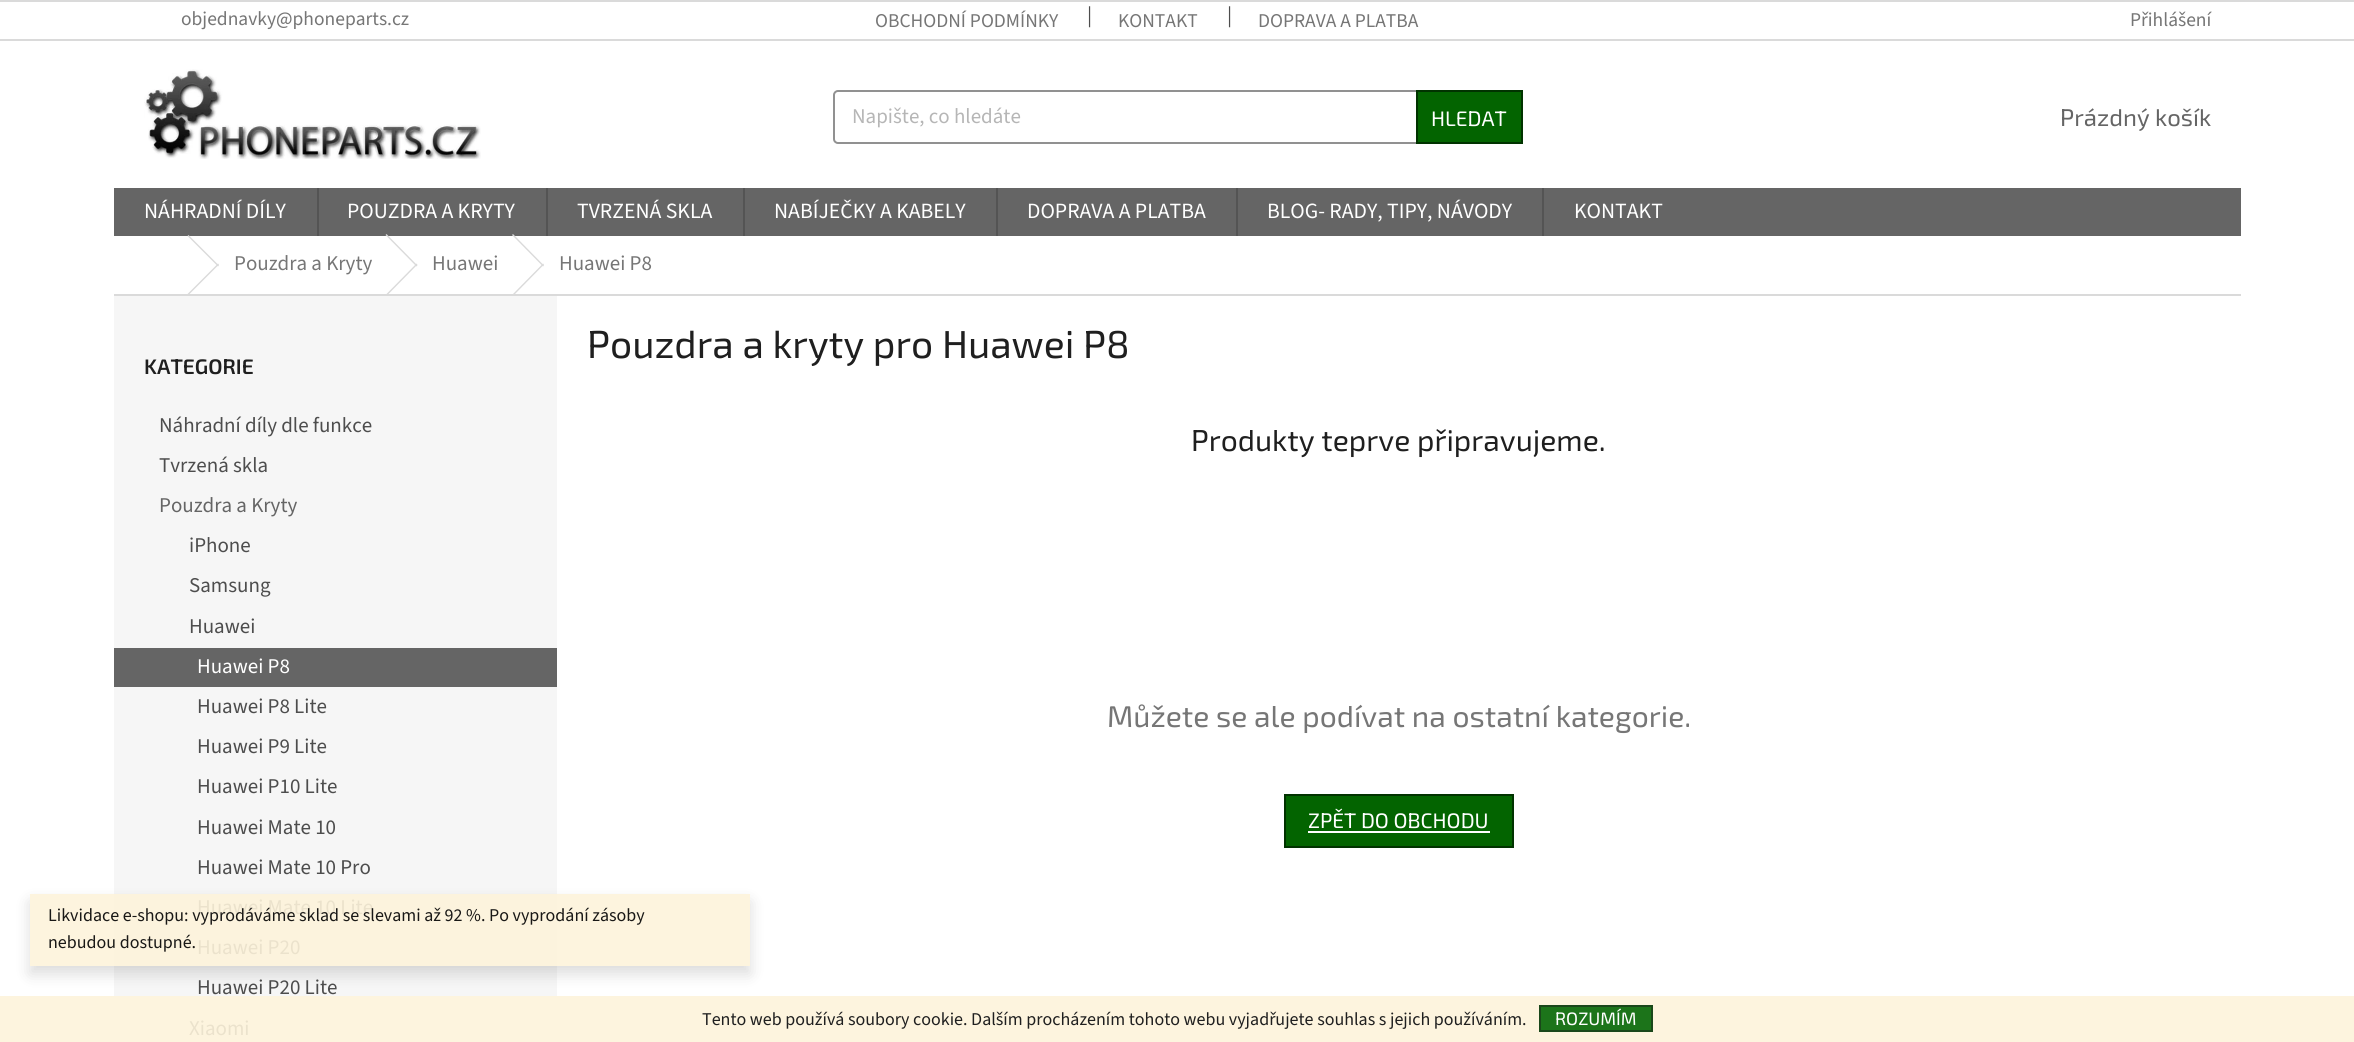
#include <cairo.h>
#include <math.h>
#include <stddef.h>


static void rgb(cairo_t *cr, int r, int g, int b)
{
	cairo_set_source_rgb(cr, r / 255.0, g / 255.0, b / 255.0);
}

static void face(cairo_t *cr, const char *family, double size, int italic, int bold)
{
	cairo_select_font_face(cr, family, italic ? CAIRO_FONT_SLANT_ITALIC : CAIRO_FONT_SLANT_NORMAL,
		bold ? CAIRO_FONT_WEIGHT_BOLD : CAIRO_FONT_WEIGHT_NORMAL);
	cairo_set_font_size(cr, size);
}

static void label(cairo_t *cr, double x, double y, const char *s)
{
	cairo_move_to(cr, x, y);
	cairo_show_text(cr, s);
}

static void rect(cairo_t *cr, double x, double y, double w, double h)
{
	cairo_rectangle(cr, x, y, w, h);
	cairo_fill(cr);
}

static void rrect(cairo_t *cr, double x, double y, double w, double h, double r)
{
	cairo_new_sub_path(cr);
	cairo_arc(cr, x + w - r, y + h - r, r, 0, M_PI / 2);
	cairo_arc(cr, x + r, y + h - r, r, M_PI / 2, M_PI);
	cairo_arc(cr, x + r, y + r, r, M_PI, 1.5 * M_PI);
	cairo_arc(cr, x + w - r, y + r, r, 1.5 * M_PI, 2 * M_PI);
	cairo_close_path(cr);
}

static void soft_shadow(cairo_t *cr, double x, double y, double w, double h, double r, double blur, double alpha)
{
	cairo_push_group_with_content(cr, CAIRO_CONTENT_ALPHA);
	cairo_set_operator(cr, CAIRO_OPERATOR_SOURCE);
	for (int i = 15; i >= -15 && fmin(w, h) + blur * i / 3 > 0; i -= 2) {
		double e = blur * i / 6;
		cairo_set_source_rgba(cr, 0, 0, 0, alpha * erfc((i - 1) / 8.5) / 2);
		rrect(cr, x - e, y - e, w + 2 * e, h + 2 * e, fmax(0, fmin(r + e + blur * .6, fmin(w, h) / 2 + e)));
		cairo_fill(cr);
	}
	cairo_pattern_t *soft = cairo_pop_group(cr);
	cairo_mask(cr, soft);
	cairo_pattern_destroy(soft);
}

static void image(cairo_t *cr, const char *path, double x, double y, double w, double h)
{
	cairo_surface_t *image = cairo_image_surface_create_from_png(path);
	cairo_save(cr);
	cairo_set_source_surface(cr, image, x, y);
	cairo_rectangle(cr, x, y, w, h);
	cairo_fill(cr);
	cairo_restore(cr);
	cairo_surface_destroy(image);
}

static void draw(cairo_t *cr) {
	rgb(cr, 255, 255, 255);
	cairo_paint(cr);
	rgb(cr, 253, 244, 222);
	rect(cr, 0, 996, 2354, 46);
	rect(cr, 30, 894, 720, 72);
	rgb(cr, 218, 218, 218);
	rect(cr, 0, 0, 2354, 2);
	rect(cr, 0, 39, 2354, 2);
	face(cr, "Source Sans 3", 19.5, 0, 0);
	rgb(cr, 118, 118, 118);
	label(cr, 181, 25, "objednavky@phoneparts.cz");
	label(cr, 875, 27, "OBCHODNÍ PODMÍNKY");
	face(cr, "Source Sans 3", 21, 0, 0);
	rgb(cr, 77, 77, 77);
	label(cr, 1087, 22, "|");
	face(cr, "Source Sans 3", 19.5, 0, 0);
	rgb(cr, 118, 118, 118);
	label(cr, 1118, 27, "KONTAKT");
	face(cr, "Source Sans 3", 21, 0, 0);
	rgb(cr, 77, 77, 77);
	label(cr, 1227, 22, "|");
	face(cr, "Source Sans 3", 19.5, 0, 0);
	rgb(cr, 118, 118, 118);
	label(cr, 1258, 27, "DOPRAVA A PLATBA");
	label(cr, 2130, 26, "Přihlášení");
	image(cr, "image0.png", 144, 69, 337, 90);
	rrect(cr, 834, 91, 688, 52, 4);
	rgb(cr, 145, 145, 145);
	cairo_stroke(cr);
	face(cr, "Source Sans 3", 21, 0, 0);
	rgb(cr, 182, 182, 182);
	label(cr, 852, 123, "Napište, co hledáte");
	rgb(cr, 3, 100, 0);
	cairo_rectangle(cr, 1417, 91, 105, 52);
	cairo_fill_preserve(cr);
	rgb(cr, 1, 51, 0);
	cairo_stroke(cr);
	face(cr, "Exo 2", 21, 0, 0);
	rgb(cr, 255, 255, 255);
	label(cr, 1431, 126, "HLEDAT");
	face(cr, "Exo 2", 24, 0, 0);
	rgb(cr, 101, 101, 101);
	label(cr, 2060, 126, "Prázdný košík");
	rect(cr, 114, 188, 2127, 48);
	face(cr, "Source Sans 3", 21.75, 0, 0);
	rgb(cr, 255, 255, 255);
	label(cr, 144, 218, "NÁHRADNÍ DÍLY");
	rgb(cr, 84, 84, 84);
	rect(cr, 317, 188, 2, 48);
	rgb(cr, 255, 255, 255);
	label(cr, 347, 218, "POUZDRA A KRYTY");
	rgb(cr, 84, 84, 84);
	rect(cr, 546, 188, 2, 48);
	rgb(cr, 255, 255, 255);
	label(cr, 577, 218, "TVRZENÁ SKLA");
	rgb(cr, 84, 84, 84);
	rect(cr, 743, 188, 2, 48);
	rgb(cr, 255, 255, 255);
	label(cr, 774, 218, "NABÍJEČKY A KABELY");
	rgb(cr, 84, 84, 84);
	rect(cr, 996, 188, 2, 48);
	rgb(cr, 255, 255, 255);
	label(cr, 1027, 218, "DOPRAVA A PLATBA");
	rgb(cr, 84, 84, 84);
	rect(cr, 1236, 188, 2, 48);
	rgb(cr, 255, 255, 255);
	label(cr, 1267, 218, "BLOG- RADY, TIPY, NÁVODY");
	rgb(cr, 84, 84, 84);
	rect(cr, 1542, 188, 2, 48);
	rgb(cr, 255, 255, 255);
	label(cr, 1574, 218, "KONTAKT");
	rgb(cr, 218, 218, 218);
	rect(cr, 114, 294, 2127, 2);
	cairo_new_path(cr);
	cairo_move_to(cr, 187.5, 236);
	cairo_line_to(cr, 188.5, 235);
	cairo_line_to(cr, 219, 265.5);
	cairo_line_to(cr, 218, 266.5);
	cairo_close_path(cr);
	cairo_fill(cr);
	cairo_new_path(cr);
	cairo_move_to(cr, 218, 263.5);
	cairo_line_to(cr, 219, 264.5);
	cairo_line_to(cr, 188.5, 295);
	cairo_line_to(cr, 187.5, 294);
	cairo_close_path(cr);
	cairo_fill(cr);
	face(cr, "Source Sans 3", 21, 0, 0);
	rgb(cr, 118, 118, 118);
	label(cr, 234, 270, "Pouzdra a Kryty");
	rgb(cr, 218, 218, 218);
	cairo_new_path(cr);
	cairo_move_to(cr, 385.5, 235);
	cairo_line_to(cr, 386.5, 234);
	cairo_line_to(cr, 417.5, 265.5);
	cairo_line_to(cr, 416.5, 266.5);
	cairo_close_path(cr);
	cairo_fill(cr);
	cairo_new_path(cr);
	cairo_move_to(cr, 416.5, 263.5);
	cairo_line_to(cr, 417.5, 264.5);
	cairo_line_to(cr, 386.5, 296);
	cairo_line_to(cr, 385.5, 295);
	cairo_close_path(cr);
	cairo_fill(cr);
	rgb(cr, 118, 118, 118);
	label(cr, 432, 270, "Huawei");
	rgb(cr, 218, 218, 218);
	cairo_new_path(cr);
	cairo_move_to(cr, 512, 235);
	cairo_line_to(cr, 513, 234);
	cairo_line_to(cr, 544, 265.5);
	cairo_line_to(cr, 543, 266.5);
	cairo_close_path(cr);
	cairo_fill(cr);
	cairo_new_path(cr);
	cairo_move_to(cr, 543, 263.5);
	cairo_line_to(cr, 544, 264.5);
	cairo_line_to(cr, 513, 296);
	cairo_line_to(cr, 512, 295);
	cairo_close_path(cr);
	cairo_fill(cr);
	rgb(cr, 118, 118, 118);
	label(cr, 559, 270, "Huawei P8");
	rgb(cr, 246, 246, 246);
	rect(cr, 114, 296, 443, 700);
	rgb(cr, 252, 243, 221);
	rect(cr, 114, 894, 443, 72);
	face(cr, "Exo 2 SemiBold", 21, 0, 0);
	rgb(cr, 31, 31, 31);
	label(cr, 144, 374, "KATEGORIE");
	face(cr, "Source Sans 3", 21, 0, 0);
	rgb(cr, 77, 77, 77);
	label(cr, 159, 432, "Náhradní díly dle funkce");
	label(cr, 159, 472, "Tvrzená skla");
	rgb(cr, 101, 101, 101);
	label(cr, 159, 512, "Pouzdra a Kryty");
	rgb(cr, 77, 77, 77);
	label(cr, 189, 552, "iPhone");
	label(cr, 189, 592, "Samsung");
	label(cr, 189, 633, "Huawei");
	rgb(cr, 101, 101, 101);
	rect(cr, 114, 648, 443, 39);
	rgb(cr, 255, 255, 255);
	label(cr, 197, 673, "Huawei P8");
	rgb(cr, 77, 77, 77);
	label(cr, 197, 713, "Huawei P8 Lite");
	label(cr, 197, 753, "Huawei P9 Lite");
	label(cr, 197, 793, "Huawei P10 Lite");
	label(cr, 197, 834, "Huawei Mate 10");
	label(cr, 197, 874, "Huawei Mate 10 Pro");
	rgb(cr, 235, 226, 204);
	label(cr, 197, 914, "Huawei Mate 10 Lite");
	label(cr, 197, 954, "Huawei P20");
	rgb(cr, 77, 77, 77);
	label(cr, 197, 994, "Huawei P20 Lite");
	rgb(cr, 235, 226, 204);
	label(cr, 189, 1035, "Xiaomi");
	face(cr, "Exo 2", 39, 0, 0);
	rgb(cr, 31, 31, 31);
	label(cr, 587, 358, "Pouzdra a kryty pro Huawei P8");
	face(cr, "Exo 2", 30, 0, 0);
	label(cr, 1191, 451, "Produkty teprve připravujeme.");
	rgb(cr, 118, 118, 118);
	label(cr, 1107, 727, "Můžete se ale podívat na ostatní kategorie.");
	rgb(cr, 3, 100, 0);
	cairo_rectangle(cr, 1285, 795, 228, 52);
	cairo_fill_preserve(cr);
	rgb(cr, 1, 51, 0);
	cairo_stroke(cr);
	face(cr, "Exo 2", 21, 0, 0);
	rgb(cr, 255, 255, 255);
	label(cr, 1308, 828, "ZPĚT DO OBCHODU");
	rect(cr, 1308, 831, 182, 2);
	cairo_save(cr);
	cairo_set_fill_rule(cr, CAIRO_FILL_RULE_EVEN_ODD);
	cairo_new_path(cr);
	cairo_move_to(cr, 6, 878);
	cairo_line_to(cr, 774, 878);
	cairo_line_to(cr, 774, 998);
	cairo_line_to(cr, 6, 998);
	cairo_close_path(cr);
	cairo_move_to(cr, 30, 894);
	cairo_line_to(cr, 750, 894);
	cairo_line_to(cr, 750, 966);
	cairo_line_to(cr, 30, 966);
	cairo_close_path(cr);
	cairo_clip(cr);
	rgb(cr, 0, 0, 0);
	soft_shadow(cr, 30, 902, 720, 72, 0, 7.5, 0.14);
	cairo_restore(cr);
	face(cr, "Source Sans 3", 18, 0, 0);
	rgb(cr, 25, 24, 22);
	label(cr, 48, 921, "Likvidace e-shopu: vyprodáváme sklad se slevami až 92 %. Po vyprodání zásoby");
	label(cr, 48, 948, "nebudou dostupné.");
	rgb(cr, 31, 31, 31);
	label(cr, 702, 1025, "Tento web používá soubory cookie. Dalším procházením tohoto webu vyjadřujete souhlas s jejich používáním.");
	rgb(cr, 28, 116, 26);
	cairo_rectangle(cr, 1540, 1006, 112, 25);
	cairo_fill_preserve(cr);
	rgb(cr, 26, 71, 26);
	cairo_stroke(cr);
	face(cr, "Exo 2", 18, 0, 0);
	rgb(cr, 255, 255, 255);
	label(cr, 1555, 1025, "ROZUMÍM");
}

int main(void) {
	cairo_surface_t *surface = cairo_image_surface_create(CAIRO_FORMAT_RGB24, 2354, 1042);
	cairo_t *cr = cairo_create(surface);
	cairo_font_options_t *options = cairo_font_options_create();
	cairo_font_options_set_hint_metrics(options, CAIRO_HINT_METRICS_OFF);
	cairo_font_options_set_hint_style(options, CAIRO_HINT_STYLE_NONE);
	cairo_set_font_options(cr, options);
	cairo_set_miter_limit(cr, 4);
	draw(cr);
	cairo_surface_write_to_png(surface, "render.png");
	cairo_font_options_destroy(options);
	cairo_destroy(cr);
	cairo_surface_destroy(surface);
	return 0;
}
